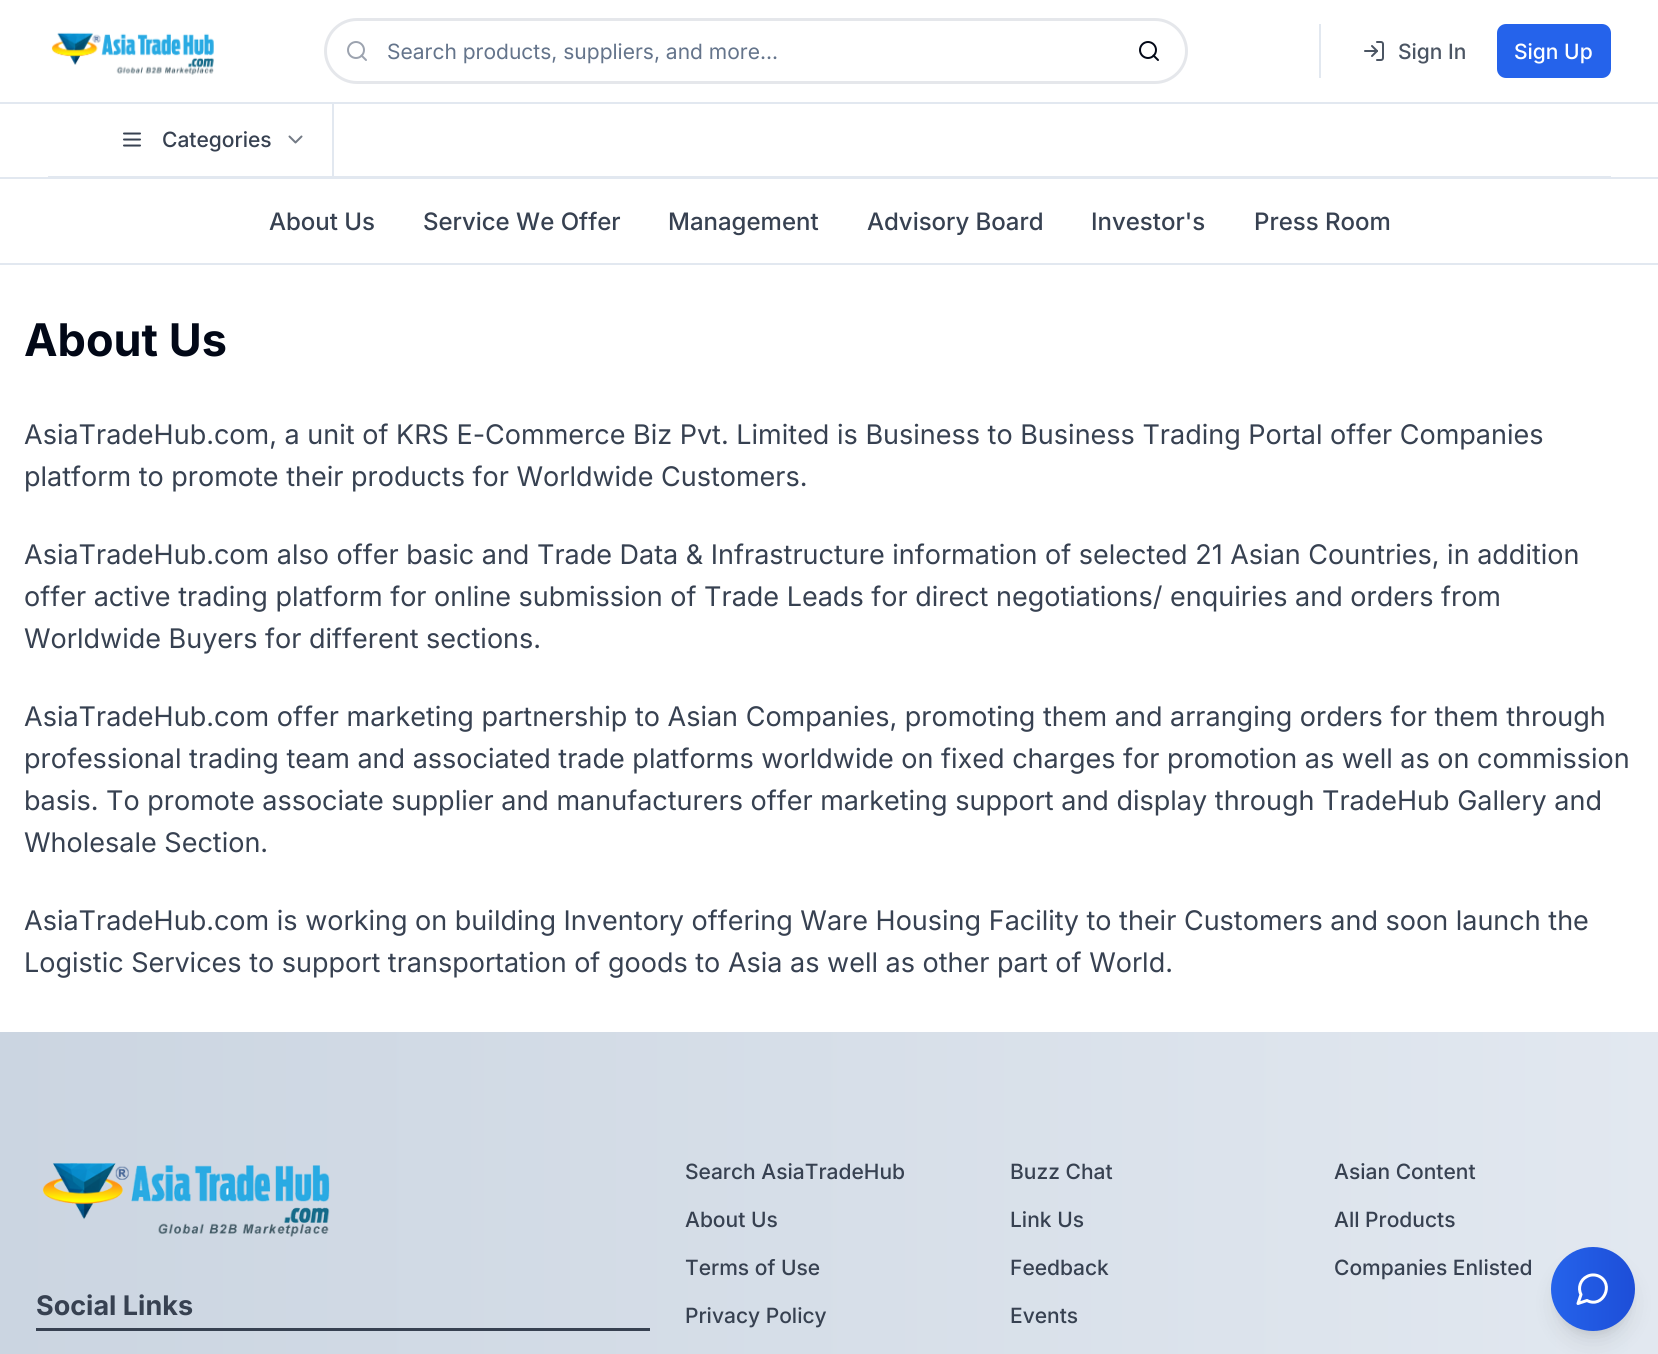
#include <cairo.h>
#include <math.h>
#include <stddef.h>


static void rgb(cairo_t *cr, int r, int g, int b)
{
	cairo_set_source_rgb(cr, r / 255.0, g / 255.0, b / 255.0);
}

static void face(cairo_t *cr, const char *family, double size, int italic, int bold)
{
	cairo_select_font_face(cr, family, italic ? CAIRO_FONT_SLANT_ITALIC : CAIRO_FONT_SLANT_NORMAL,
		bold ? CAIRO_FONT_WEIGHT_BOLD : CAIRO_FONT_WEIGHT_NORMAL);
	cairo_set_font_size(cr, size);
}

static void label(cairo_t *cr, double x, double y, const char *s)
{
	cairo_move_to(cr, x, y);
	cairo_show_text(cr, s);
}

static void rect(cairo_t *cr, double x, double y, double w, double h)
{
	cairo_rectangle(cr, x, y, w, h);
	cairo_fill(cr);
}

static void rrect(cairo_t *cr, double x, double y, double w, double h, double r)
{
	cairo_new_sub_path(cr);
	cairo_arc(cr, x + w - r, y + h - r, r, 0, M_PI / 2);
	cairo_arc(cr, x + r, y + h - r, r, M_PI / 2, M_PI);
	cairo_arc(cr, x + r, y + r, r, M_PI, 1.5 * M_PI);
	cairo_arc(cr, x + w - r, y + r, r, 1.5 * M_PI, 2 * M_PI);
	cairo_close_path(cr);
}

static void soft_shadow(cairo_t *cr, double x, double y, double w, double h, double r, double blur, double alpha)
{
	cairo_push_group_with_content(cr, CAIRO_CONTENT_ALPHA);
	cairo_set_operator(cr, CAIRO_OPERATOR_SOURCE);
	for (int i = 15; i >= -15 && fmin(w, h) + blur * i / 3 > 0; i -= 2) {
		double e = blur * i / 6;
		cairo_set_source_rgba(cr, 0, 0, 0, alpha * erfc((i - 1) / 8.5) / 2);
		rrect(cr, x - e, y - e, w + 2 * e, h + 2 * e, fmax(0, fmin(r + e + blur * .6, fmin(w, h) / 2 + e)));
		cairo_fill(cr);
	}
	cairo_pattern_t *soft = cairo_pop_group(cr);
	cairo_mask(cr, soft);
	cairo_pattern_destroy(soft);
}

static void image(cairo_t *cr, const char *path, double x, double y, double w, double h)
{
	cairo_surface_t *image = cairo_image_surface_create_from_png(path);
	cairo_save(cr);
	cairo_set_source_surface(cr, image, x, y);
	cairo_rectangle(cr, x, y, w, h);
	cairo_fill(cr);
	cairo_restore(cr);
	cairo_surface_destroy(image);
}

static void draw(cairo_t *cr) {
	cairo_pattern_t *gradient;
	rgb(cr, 255, 255, 255);
	cairo_paint(cr);
	rgb(cr, 226, 232, 240);
	rect(cr, 0, 102, 1658, 2);
	image(cr, "image0.png", 51, 32, 163, 43);
	rrect(cr, 325.5, 19.5, 861, 63, 31.5);
	rgb(cr, 229, 231, 235);
	cairo_set_line_width(cr, 3);
	cairo_stroke(cr);
	cairo_arc(cr, 356, 50, 8, 0, 2 * M_PI);
	rgb(cr, 156, 163, 175);
	cairo_set_line_width(cr, 2);
	cairo_stroke(cr);
	cairo_new_path(cr);
	cairo_move_to(cr, 366, 60);
	cairo_line_to(cr, 361.5, 55.5);
	cairo_set_line_cap(cr, CAIRO_LINE_CAP_ROUND);
	cairo_set_line_join(cr, CAIRO_LINE_JOIN_ROUND);
	cairo_stroke(cr);
	face(cr, "Inter", 21, 0, 0);
	rgb(cr, 100, 116, 139);
	label(cr, 387, 59, "Search products, suppliers, and more...");
	cairo_new_path(cr);
	cairo_arc(cr, 1148, 50, 8, 0, 2 * M_PI);
	rgb(cr, 2, 8, 23);
	cairo_set_line_cap(cr, CAIRO_LINE_CAP_BUTT);
	cairo_set_line_join(cr, CAIRO_LINE_JOIN_MITER);
	cairo_stroke(cr);
	cairo_new_path(cr);
	cairo_move_to(cr, 1158, 60);
	cairo_line_to(cr, 1153.5, 55.5);
	cairo_set_line_cap(cr, CAIRO_LINE_CAP_ROUND);
	cairo_set_line_join(cr, CAIRO_LINE_JOIN_ROUND);
	cairo_stroke(cr);
	rgb(cr, 226, 232, 240);
	rect(cr, 1319, 24, 2, 54);
	image(cr, "image1.png", 1364, 41, 20, 20);
	face(cr, "Inter Medium", 21, 0, 0);
	rgb(cr, 75, 85, 99);
	label(cr, 1398, 59, "Sign In");
	rgb(cr, 37, 99, 235);
	rrect(cr, 1497, 24, 114, 54, 9);
	cairo_fill(cr);
	rgb(cr, 255, 255, 255);
	label(cr, 1514, 59, "Sign Up");
	rgb(cr, 226, 232, 240);
	rect(cr, 0, 177, 1658, 2);
	rect(cr, 48, 176, 1563, 1);
	rect(cr, 332, 104, 2, 72);
	image(cr, "image2.png", 123, 132, 18, 15);
	rgb(cr, 55, 65, 81);
	label(cr, 162, 147, "Categories");
	cairo_new_path(cr);
	cairo_move_to(cr, 289.5, 136.5);
	cairo_line_to(cr, 295.5, 142.5);
	cairo_line_to(cr, 301.5, 136.5);
	rgb(cr, 115, 122, 133);
	cairo_stroke(cr);
	rgb(cr, 226, 232, 240);
	rect(cr, 0, 263, 1658, 2);
	face(cr, "Inter Medium", 24, 0, 0);
	rgb(cr, 55, 65, 81);
	label(cr, 269, 230, "About Us");
	label(cr, 423, 230, "Service We Offer");
	label(cr, 668, 230, "Management");
	label(cr, 867, 230, "Advisory Board");
	label(cr, 1091, 230, "Investor's");
	label(cr, 1254, 230, "Press Room");
	face(cr, "Inter", 45, 0, 1);
	rgb(cr, 2, 8, 23);
	label(cr, 24, 356, "About Us");
	face(cr, "Inter", 27, 0, 0);
	rgb(cr, 55, 65, 81);
	label(cr, 24, 444, "AsiaTradeHub.com, a unit of KRS E-Commerce Biz Pvt. Limited is Business to Business Trading Portal offer Companies");
	label(cr, 24, 486, "platform to promote their products for Worldwide Customers.");
	label(cr, 24, 564, "AsiaTradeHub.com also offer basic and Trade Data & Infrastructure information of selected 21 Asian Countries, in addition");
	label(cr, 24, 606, "offer active trading platform for online submission of Trade Leads for direct negotiations/ enquiries and orders from");
	label(cr, 24, 648, "Worldwide Buyers for different sections.");
	label(cr, 24, 726, "AsiaTradeHub.com offer marketing partnership to Asian Companies, promoting them and arranging orders for them through");
	label(cr, 24, 768, "professional trading team and associated trade platforms worldwide on fixed charges for promotion as well as on commission");
	label(cr, 24, 810, "basis. To promote associate supplier and manufacturers offer marketing support and display through TradeHub Gallery and");
	label(cr, 24, 852, "Wholesale Section.");
	label(cr, 24, 930, "AsiaTradeHub.com is working on building Inventory offering Ware Housing Facility to their Customers and soon launch the");
	label(cr, 24, 972, "Logistic Services to support transportation of goods to Asia as well as other part of World.");
	gradient = cairo_pattern_create_linear(0, 1309, 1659, 1309);
	cairo_pattern_add_color_stop_rgba(gradient, 0, 0.796, 0.835, 0.882, 1);
	cairo_pattern_add_color_stop_rgba(gradient, 1, 0.886, 0.91, 0.941, 1);
	cairo_set_source(cr, gradient);
	cairo_pattern_destroy(gradient);
	rect(cr, 0, 1032, 1658, 322);
	face(cr, "Inter Medium", 21, 0, 0);
	rgb(cr, 55, 65, 81);
	label(cr, 685, 1179, "Search AsiaTradeHub");
	label(cr, 685, 1227, "About Us");
	label(cr, 685, 1275, "Terms of Use");
	label(cr, 685, 1323, "Privacy Policy");
	label(cr, 1010, 1179, "Buzz Chat");
	label(cr, 1010, 1227, "Link Us");
	label(cr, 1010, 1275, "Feedback");
	label(cr, 1010, 1323, "Events");
	label(cr, 1334, 1179, "Asian Content");
	label(cr, 1334, 1227, "All Products");
	label(cr, 1334, 1275, "Companies Enlisted");
	image(cr, "image3.png", 42, 1163, 288, 74);
	rect(cr, 36, 1328, 614, 3);
	face(cr, "Inter", 27, 0, 1);
	label(cr, 36, 1315, "Social Links");
	rgb(cr, 0, 0, 0);
	soft_shadow(cr, 1557, 1259, 72, 72, 36, 4.5, 0.1);
	soft_shadow(cr, 1556, 1266, 75, 75, 37.5, 11, 0.1);
	gradient = cairo_pattern_create_linear(1551, 1289, 1635, 1289);
	cairo_pattern_add_color_stop_rgba(gradient, 0, 0.145, 0.388, 0.922, 1);
	cairo_pattern_add_color_stop_rgba(gradient, 1, 0.114, 0.306, 0.847, 1);
	cairo_set_source(cr, gradient);
	cairo_pattern_destroy(gradient);
	cairo_arc(cr, 1593, 1289, 42, 0, 2 * M_PI);
	cairo_fill(cr);
	cairo_new_path(cr);
	cairo_move_to(cr, 1587, 1300.5);
	cairo_curve_to(cr, 1603, 1309, 1615, 1283.5, 1598.5, 1276);
	cairo_curve_to(cr, 1595, 1274.5, 1590.5, 1274.5, 1587, 1276.5);
	cairo_curve_to(cr, 1580.5, 1279.5, 1577.5, 1288, 1581, 1294.5);
	cairo_line_to(cr, 1578, 1303.5);
	cairo_close_path(cr);
	rgb(cr, 255, 255, 255);
	cairo_set_line_width(cr, 3);
	cairo_stroke(cr);
}

int main(void) {
	cairo_surface_t *surface = cairo_image_surface_create(CAIRO_FORMAT_RGB24, 1658, 1354);
	cairo_t *cr = cairo_create(surface);
	cairo_font_options_t *options = cairo_font_options_create();
	cairo_font_options_set_hint_metrics(options, CAIRO_HINT_METRICS_OFF);
	cairo_font_options_set_hint_style(options, CAIRO_HINT_STYLE_NONE);
	cairo_set_font_options(cr, options);
	cairo_set_miter_limit(cr, 4);
	draw(cr);
	cairo_surface_write_to_png(surface, "render.png");
	cairo_font_options_destroy(options);
	cairo_destroy(cr);
	cairo_surface_destroy(surface);
	return 0;
}
